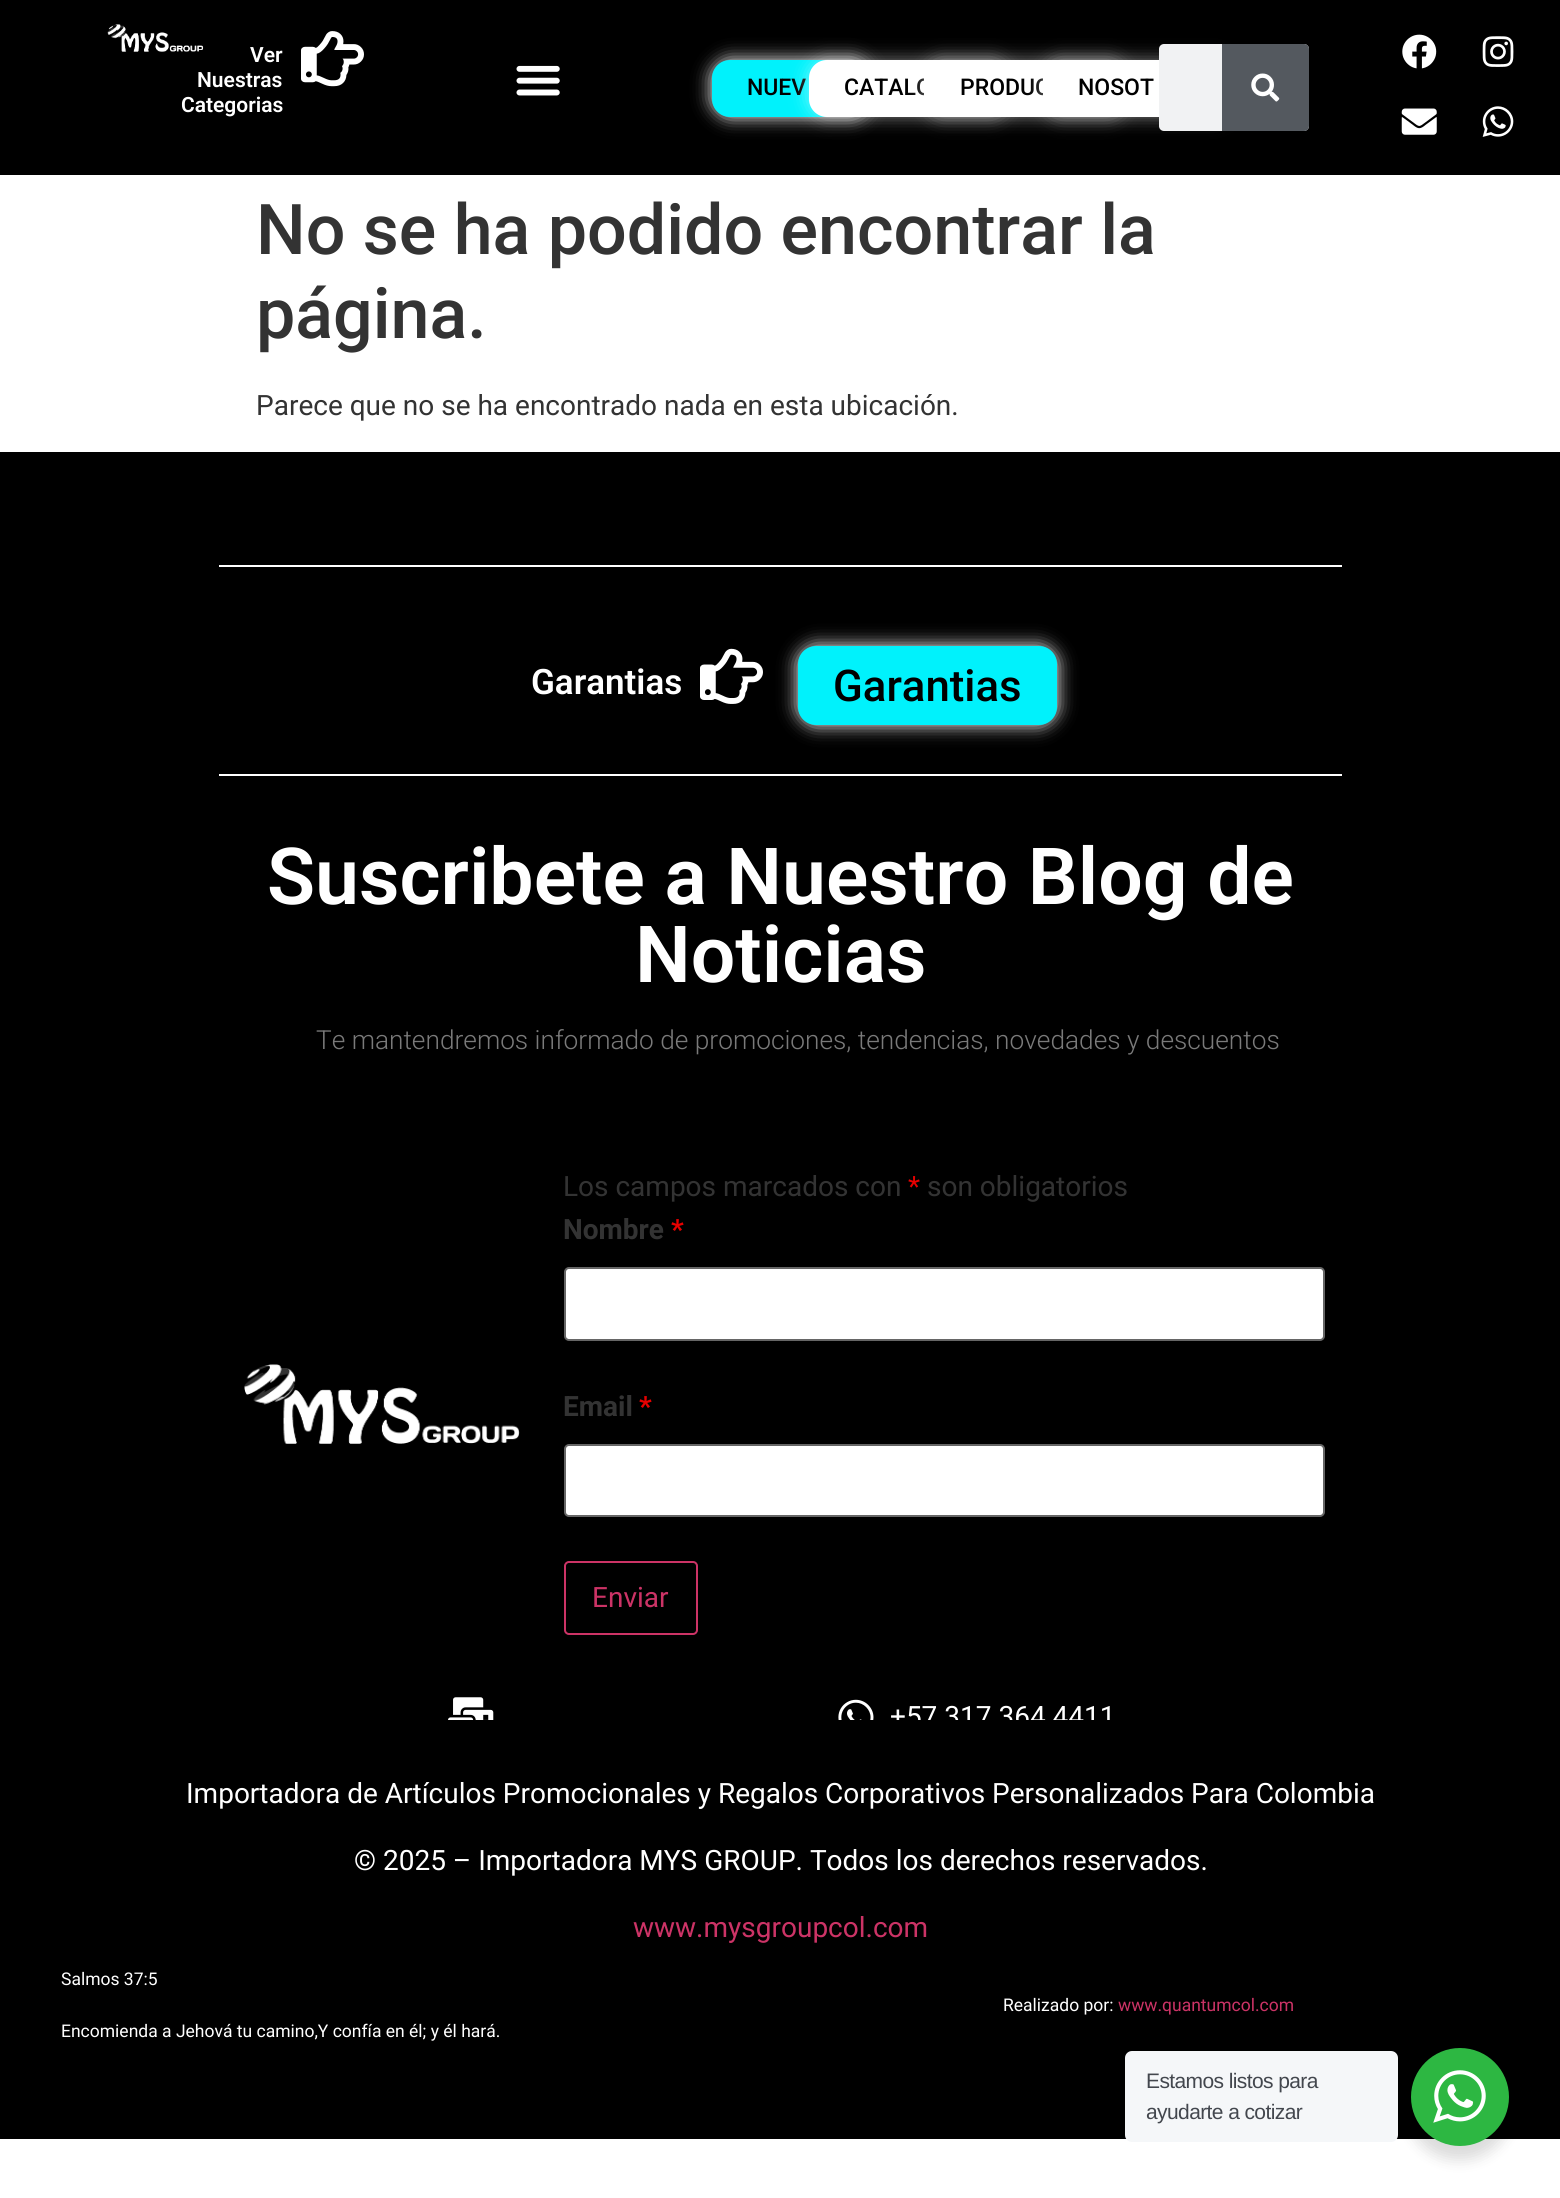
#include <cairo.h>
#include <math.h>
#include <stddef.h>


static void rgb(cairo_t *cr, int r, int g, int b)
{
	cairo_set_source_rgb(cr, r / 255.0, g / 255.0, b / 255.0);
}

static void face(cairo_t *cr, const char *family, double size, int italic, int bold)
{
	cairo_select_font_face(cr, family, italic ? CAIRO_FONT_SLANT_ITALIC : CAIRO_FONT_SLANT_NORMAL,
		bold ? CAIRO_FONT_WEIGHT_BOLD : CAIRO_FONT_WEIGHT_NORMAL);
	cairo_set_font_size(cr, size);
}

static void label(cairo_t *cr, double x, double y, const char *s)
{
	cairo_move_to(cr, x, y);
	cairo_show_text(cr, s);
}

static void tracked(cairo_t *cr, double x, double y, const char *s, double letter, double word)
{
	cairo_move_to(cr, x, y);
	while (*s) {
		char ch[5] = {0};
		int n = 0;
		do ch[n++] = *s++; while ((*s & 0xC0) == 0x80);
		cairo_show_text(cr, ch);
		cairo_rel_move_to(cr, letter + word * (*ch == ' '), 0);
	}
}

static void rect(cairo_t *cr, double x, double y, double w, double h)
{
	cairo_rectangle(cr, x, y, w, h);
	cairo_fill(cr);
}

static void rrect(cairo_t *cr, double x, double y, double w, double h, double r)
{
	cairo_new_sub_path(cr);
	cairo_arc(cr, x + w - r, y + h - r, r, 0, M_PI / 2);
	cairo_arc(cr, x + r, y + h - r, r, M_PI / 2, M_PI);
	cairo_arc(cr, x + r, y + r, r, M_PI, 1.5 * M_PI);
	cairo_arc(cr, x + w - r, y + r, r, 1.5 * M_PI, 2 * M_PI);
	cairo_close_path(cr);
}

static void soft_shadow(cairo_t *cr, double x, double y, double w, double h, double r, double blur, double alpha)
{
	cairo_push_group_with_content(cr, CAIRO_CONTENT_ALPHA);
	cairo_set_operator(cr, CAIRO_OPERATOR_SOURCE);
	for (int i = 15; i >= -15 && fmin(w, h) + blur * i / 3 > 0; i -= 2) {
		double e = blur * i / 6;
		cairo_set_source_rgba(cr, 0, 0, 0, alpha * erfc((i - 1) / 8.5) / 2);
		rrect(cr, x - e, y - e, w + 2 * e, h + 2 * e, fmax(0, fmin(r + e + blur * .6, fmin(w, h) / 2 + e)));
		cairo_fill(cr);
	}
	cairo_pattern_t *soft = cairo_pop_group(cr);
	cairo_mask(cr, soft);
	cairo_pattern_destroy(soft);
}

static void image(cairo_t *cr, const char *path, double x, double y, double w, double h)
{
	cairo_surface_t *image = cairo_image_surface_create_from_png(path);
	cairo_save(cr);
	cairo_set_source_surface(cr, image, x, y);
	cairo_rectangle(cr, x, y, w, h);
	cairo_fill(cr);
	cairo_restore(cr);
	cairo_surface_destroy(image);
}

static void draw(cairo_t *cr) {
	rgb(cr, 255, 255, 255);
	cairo_paint(cr);
	rgb(cr, 0, 0, 0);
	rect(cr, 0, 0, 1560, 175);
	image(cr, "image0.png", 107, 24, 97, 28);
	face(cr, "Roboto SemiBold", 21, 0, 0);
	rgb(cr, 255, 255, 255);
	label(cr, 250, 62, "Ver");
	label(cr, 197, 87, "Nuestras");
	label(cr, 181, 112, "Categorias");
	image(cr, "image1.png", 301, 31, 63, 56);
	image(cr, "image2.png", 516, 65, 44, 31);
	rgb(cr, 255, 255, 255);
	soft_shadow(cr, 712, 60, 158, 57, 18, 9, 1);
	rgb(cr, 0, 242, 252);
	rrect(cr, 712, 60, 158, 57, 18);
	cairo_fill(cr);
	face(cr, "Roboto Medium", 23, 0, 0);
	rgb(cr, 0, 0, 0);
	label(cr, 747, 95, "NUEV");
	rgb(cr, 255, 255, 255);
	soft_shadow(cr, 809, 60, 201, 57, 18, 9, 0.5);
	rgb(cr, 255, 255, 255);
	rrect(cr, 809, 60, 201, 57, 18);
	cairo_fill(cr);
	rgb(cr, 0, 0, 0);
	label(cr, 844, 95, "CATALO");
	rgb(cr, 255, 255, 255);
	soft_shadow(cr, 924, 60, 203, 57, 18, 9, 0.5);
	rgb(cr, 255, 255, 255);
	rrect(cr, 924, 60, 203, 57, 18);
	cairo_fill(cr);
	rgb(cr, 0, 0, 0);
	label(cr, 960, 95, "PRODUC");
	rgb(cr, 255, 255, 255);
	soft_shadow(cr, 1043, 60, 189, 57, 18, 9, 0.5);
	rgb(cr, 255, 255, 255);
	rrect(cr, 1043, 60, 189, 57, 18);
	cairo_fill(cr);
	rgb(cr, 0, 0, 0);
	label(cr, 1078, 95, "NOSOT");
	rgb(cr, 241, 242, 243);
	rrect(cr, 1159, 44, 150, 87, 5);
	cairo_fill(cr);
	rgb(cr, 84, 89, 95);
	cairo_new_path(cr);
	cairo_move_to(cr, 1222, 44);
	cairo_line_to(cr, 1304, 44);
	cairo_curve_to(cr, 1307, 44, 1309, 46, 1309, 49);
	cairo_line_to(cr, 1309, 126);
	cairo_curve_to(cr, 1309, 129, 1307, 131, 1304, 131);
	cairo_line_to(cr, 1222, 131);
	cairo_close_path(cr);
	cairo_fill(cr);
	image(cr, "image3.png", 1251, 73, 29, 29);
	image(cr, "image4.png", 1402, 34, 35, 35);
	image(cr, "image5.png", 1482, 36, 32, 31);
	image(cr, "image6.png", 1401, 108, 36, 27);
	image(cr, "image7.png", 1482, 106, 32, 31);
	face(cr, "Roboto Medium", 70, 0, 0);
	rgb(cr, 51, 51, 51);
	label(cr, 256, 254, "No se ha podido encontrar la");
	label(cr, 256, 338, "página.");
	face(cr, "Roboto", 28, 0, 0);
	label(cr, 256, 415, "Parece que no se ha encontrado nada en esta ubicación.");
	rgb(cr, 0, 0, 0);
	rect(cr, 0, 452, 1560, 1268);
	rgb(cr, 255, 255, 255);
	rect(cr, 219, 565, 1123, 2);
	face(cr, "Roboto SemiBold", 35, 0, 0);
	label(cr, 531, 694, "Garantias");
	image(cr, "image8.png", 700, 648, 63, 56);
	rgb(cr, 255, 255, 255);
	soft_shadow(cr, 798, 646, 259, 79, 18, 9, 1);
	rgb(cr, 0, 242, 252);
	rrect(cr, 798, 646, 259, 79, 18);
	cairo_fill(cr);
	face(cr, "Roboto Medium", 43.75, 0, 0);
	rgb(cr, 0, 0, 0);
	label(cr, 833, 701, "Garantias");
	rgb(cr, 255, 255, 255);
	rect(cr, 219, 774, 1123, 2);
	face(cr, "Roboto SemiBold", 78.75, 0, 0);
	label(cr, 267, 904, "Suscribete a Nuestro Blog de");
	label(cr, 635, 982, "Noticias");
	face(cr, "Roboto Light", 26.25, 0, 0);
	rgb(cr, 122, 122, 122);
	label(cr, 316, 1049, "Te mantendremos informado de promociones, tendencias, novedades y descuentos");
	image(cr, "image9.png", 244, 1364, 276, 80);
	face(cr, "Roboto", 28, 0, 0);
	rgb(cr, 51, 51, 51);
	label(cr, 563, 1196, "Los campos marcados con");
	rgb(cr, 232, 0, 0);
	label(cr, 908, 1196, "*");
	rgb(cr, 51, 51, 51);
	label(cr, 927, 1196, "son obligatorios");
	face(cr, "Roboto", 28, 0, 1);
	label(cr, 563, 1239, "Nombre");
	rgb(cr, 232, 0, 0);
	label(cr, 671, 1239, "*");
	rgb(cr, 255, 255, 255);
	rrect(cr, 565, 1268, 759, 72, 4);
	cairo_fill_preserve(cr);
	rgb(cr, 102, 102, 102);
	cairo_stroke(cr);
	rgb(cr, 51, 51, 51);
	label(cr, 563, 1416, "Email");
	rgb(cr, 232, 0, 0);
	label(cr, 639, 1416, "*");
	rgb(cr, 255, 255, 255);
	rrect(cr, 565, 1445, 759, 71, 4);
	cairo_fill_preserve(cr);
	rgb(cr, 102, 102, 102);
	cairo_stroke(cr);
	rrect(cr, 565, 1562, 132, 72, 4);
	rgb(cr, 204, 51, 102);
	cairo_stroke(cr);
	face(cr, "Roboto", 28, 0, 0);
	label(cr, 592, 1607, "Enviar");
	image(cr, "image10.png", 448, 1697, 46, 23);
	image(cr, "image11.png", 838, 1699, 36, 21);
	rgb(cr, 255, 255, 255);
	label(cr, 890, 1726, "+57 317 364 4411");
	rgb(cr, 0, 0, 0);
	rect(cr, 0, 1720, 1560, 419);
	rgb(cr, 255, 255, 255);
	label(cr, 186, 1803, "Importadora de Artículos Promocionales y Regalos Corporativos Personalizados Para Colombia");
	label(cr, 354, 1870, "© 2025 – Importadora MYS GROUP. Todos los derechos reservados.");
	rgb(cr, 204, 51, 102);
	label(cr, 633, 1937, "www.mysgroupcol.com");
	face(cr, "Roboto", 17.5, 0, 0);
	rgb(cr, 255, 255, 255);
	label(cr, 61, 1985, "Salmos 37:5");
	label(cr, 61, 2037, "Encomienda a Jehová tu camino,Y confía en él; y él hará.");
	label(cr, 1003, 2011, "Realizado por:");
	rgb(cr, 204, 51, 102);
	label(cr, 1118, 2011, "www.quantumcol.com");
	rgb(cr, 0, 0, 0);
	soft_shadow(cr, 1407, 2055, 105, 105, 52.5, 7, 0.14);
	rgb(cr, 245, 247, 249);
	rrect(cr, 1125, 2051, 273, 91, 7);
	cairo_fill(cr);
	face(cr, "Liberation Sans", 21, 0, 0);
	rgb(cr, 67, 71, 78);
	tracked(cr, 1146, 2088, "Estamos listos para", -0.6, 0);
	tracked(cr, 1146, 2119, "ayudarte a cotizar", -0.6, 0);
	rgb(cr, 45, 183, 66);
	cairo_new_path(cr);
	cairo_arc(cr, 1460, 2097, 49, 0, 2 * M_PI);
	cairo_fill(cr);
	image(cr, "image12.png", 1433, 2070, 53, 53);
}

int main(void) {
	cairo_surface_t *surface = cairo_image_surface_create(CAIRO_FORMAT_RGB24, 1560, 2198);
	cairo_t *cr = cairo_create(surface);
	cairo_font_options_t *options = cairo_font_options_create();
	cairo_font_options_set_hint_metrics(options, CAIRO_HINT_METRICS_OFF);
	cairo_font_options_set_hint_style(options, CAIRO_HINT_STYLE_NONE);
	cairo_set_font_options(cr, options);
	cairo_set_miter_limit(cr, 4);
	draw(cr);
	cairo_surface_write_to_png(surface, "render.png");
	cairo_font_options_destroy(options);
	cairo_destroy(cr);
	cairo_surface_destroy(surface);
	return 0;
}
